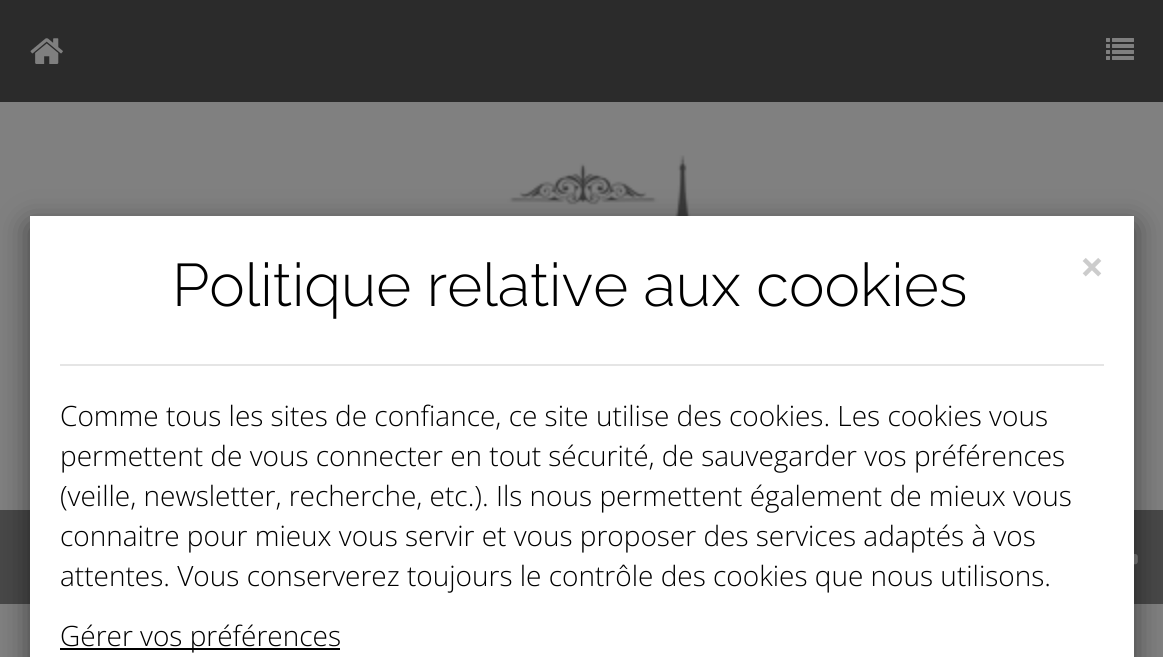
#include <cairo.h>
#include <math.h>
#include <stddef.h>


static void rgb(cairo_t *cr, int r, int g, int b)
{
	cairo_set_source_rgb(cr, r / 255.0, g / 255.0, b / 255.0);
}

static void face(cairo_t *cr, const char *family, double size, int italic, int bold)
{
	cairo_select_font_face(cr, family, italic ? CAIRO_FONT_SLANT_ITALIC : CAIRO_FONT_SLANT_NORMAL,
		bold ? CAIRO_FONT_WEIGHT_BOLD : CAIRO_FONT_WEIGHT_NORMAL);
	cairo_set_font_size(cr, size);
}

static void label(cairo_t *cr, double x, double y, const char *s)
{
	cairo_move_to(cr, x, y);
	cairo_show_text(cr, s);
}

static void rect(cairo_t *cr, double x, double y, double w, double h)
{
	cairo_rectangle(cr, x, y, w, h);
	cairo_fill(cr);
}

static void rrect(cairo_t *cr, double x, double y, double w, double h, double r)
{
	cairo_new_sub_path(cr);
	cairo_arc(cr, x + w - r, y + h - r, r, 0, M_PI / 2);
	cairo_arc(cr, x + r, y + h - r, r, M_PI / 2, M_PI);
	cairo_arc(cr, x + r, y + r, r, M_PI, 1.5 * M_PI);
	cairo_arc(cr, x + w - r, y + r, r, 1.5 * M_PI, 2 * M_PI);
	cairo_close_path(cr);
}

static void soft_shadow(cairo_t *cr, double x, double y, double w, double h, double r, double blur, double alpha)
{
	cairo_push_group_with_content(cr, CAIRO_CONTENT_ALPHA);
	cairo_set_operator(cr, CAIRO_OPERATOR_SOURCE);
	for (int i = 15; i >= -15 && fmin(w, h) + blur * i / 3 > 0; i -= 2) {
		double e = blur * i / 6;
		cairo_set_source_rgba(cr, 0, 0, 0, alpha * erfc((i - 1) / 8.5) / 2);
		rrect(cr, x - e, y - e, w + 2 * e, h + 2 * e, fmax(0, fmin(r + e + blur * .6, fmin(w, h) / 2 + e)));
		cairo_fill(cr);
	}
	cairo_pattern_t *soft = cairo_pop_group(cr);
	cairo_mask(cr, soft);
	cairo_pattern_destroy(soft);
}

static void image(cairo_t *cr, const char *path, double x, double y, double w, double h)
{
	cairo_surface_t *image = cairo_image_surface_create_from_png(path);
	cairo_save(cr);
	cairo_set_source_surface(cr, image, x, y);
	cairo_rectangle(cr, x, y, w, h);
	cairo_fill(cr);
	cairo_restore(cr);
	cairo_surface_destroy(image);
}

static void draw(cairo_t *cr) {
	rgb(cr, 128, 128, 128);
	cairo_paint(cr);
	rgb(cr, 43, 43, 43);
	rect(cr, 0, 0, 1163, 102);
	image(cr, "image0.png", 30, 38, 33, 26);
	image(cr, "image1.png", 1106, 38, 28, 22);
	image(cr, "image2.png", 455, 155, 254, 61);
	rgb(cr, 72, 72, 72);
	rect(cr, 0, 510, 1163, 94);
	image(cr, "image3.png", 1134, 554, 4, 11);
	rgb(cr, 0, 0, 0);
	soft_shadow(cr, 30, 226, 1104, 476, 0, 15, 0.5);
	rgb(cr, 255, 255, 255);
	rect(cr, 30, 216, 1104, 441);
	face(cr, "Raleway Thin", 60, 0, 0);
	rgb(cr, 0, 0, 0);
	label(cr, 172, 306, "Politique relative aux cookies");
	face(cr, "Open Sans", 42, 0, 1);
	rgb(cr, 204, 204, 204);
	label(cr, 1080, 282, "×");
	rgb(cr, 229, 229, 229);
	rect(cr, 60, 364, 1044, 2);
	face(cr, "Open Sans Light", 28, 0, 0);
	rgb(cr, 0, 0, 0);
	label(cr, 60, 426, "Comme tous les sites de confiance, ce site utilise des cookies. Les cookies vous");
	label(cr, 60, 466, "permettent de vous connecter en tout sécurité, de sauvegarder vos préférences");
	label(cr, 60, 506, "(veille, newsletter, recherche, etc.). Ils nous permettent également de mieux vous");
	label(cr, 60, 546, "connaitre pour mieux vous servir et vous proposer des services adaptés à vos");
	label(cr, 60, 586, "attentes. Vous conserverez toujours le contrôle des cookies que nous utilisons.");
	rect(cr, 60, 648, 280, 2);
	label(cr, 60, 646, "Gérer vos préférences");
}

int main(void) {
	cairo_surface_t *surface = cairo_image_surface_create(CAIRO_FORMAT_RGB24, 1163, 657);
	cairo_t *cr = cairo_create(surface);
	cairo_font_options_t *options = cairo_font_options_create();
	cairo_font_options_set_hint_metrics(options, CAIRO_HINT_METRICS_OFF);
	cairo_font_options_set_hint_style(options, CAIRO_HINT_STYLE_NONE);
	cairo_set_font_options(cr, options);
	cairo_set_miter_limit(cr, 4);
	draw(cr);
	cairo_surface_write_to_png(surface, "render.png");
	cairo_font_options_destroy(options);
	cairo_destroy(cr);
	cairo_surface_destroy(surface);
	return 0;
}
